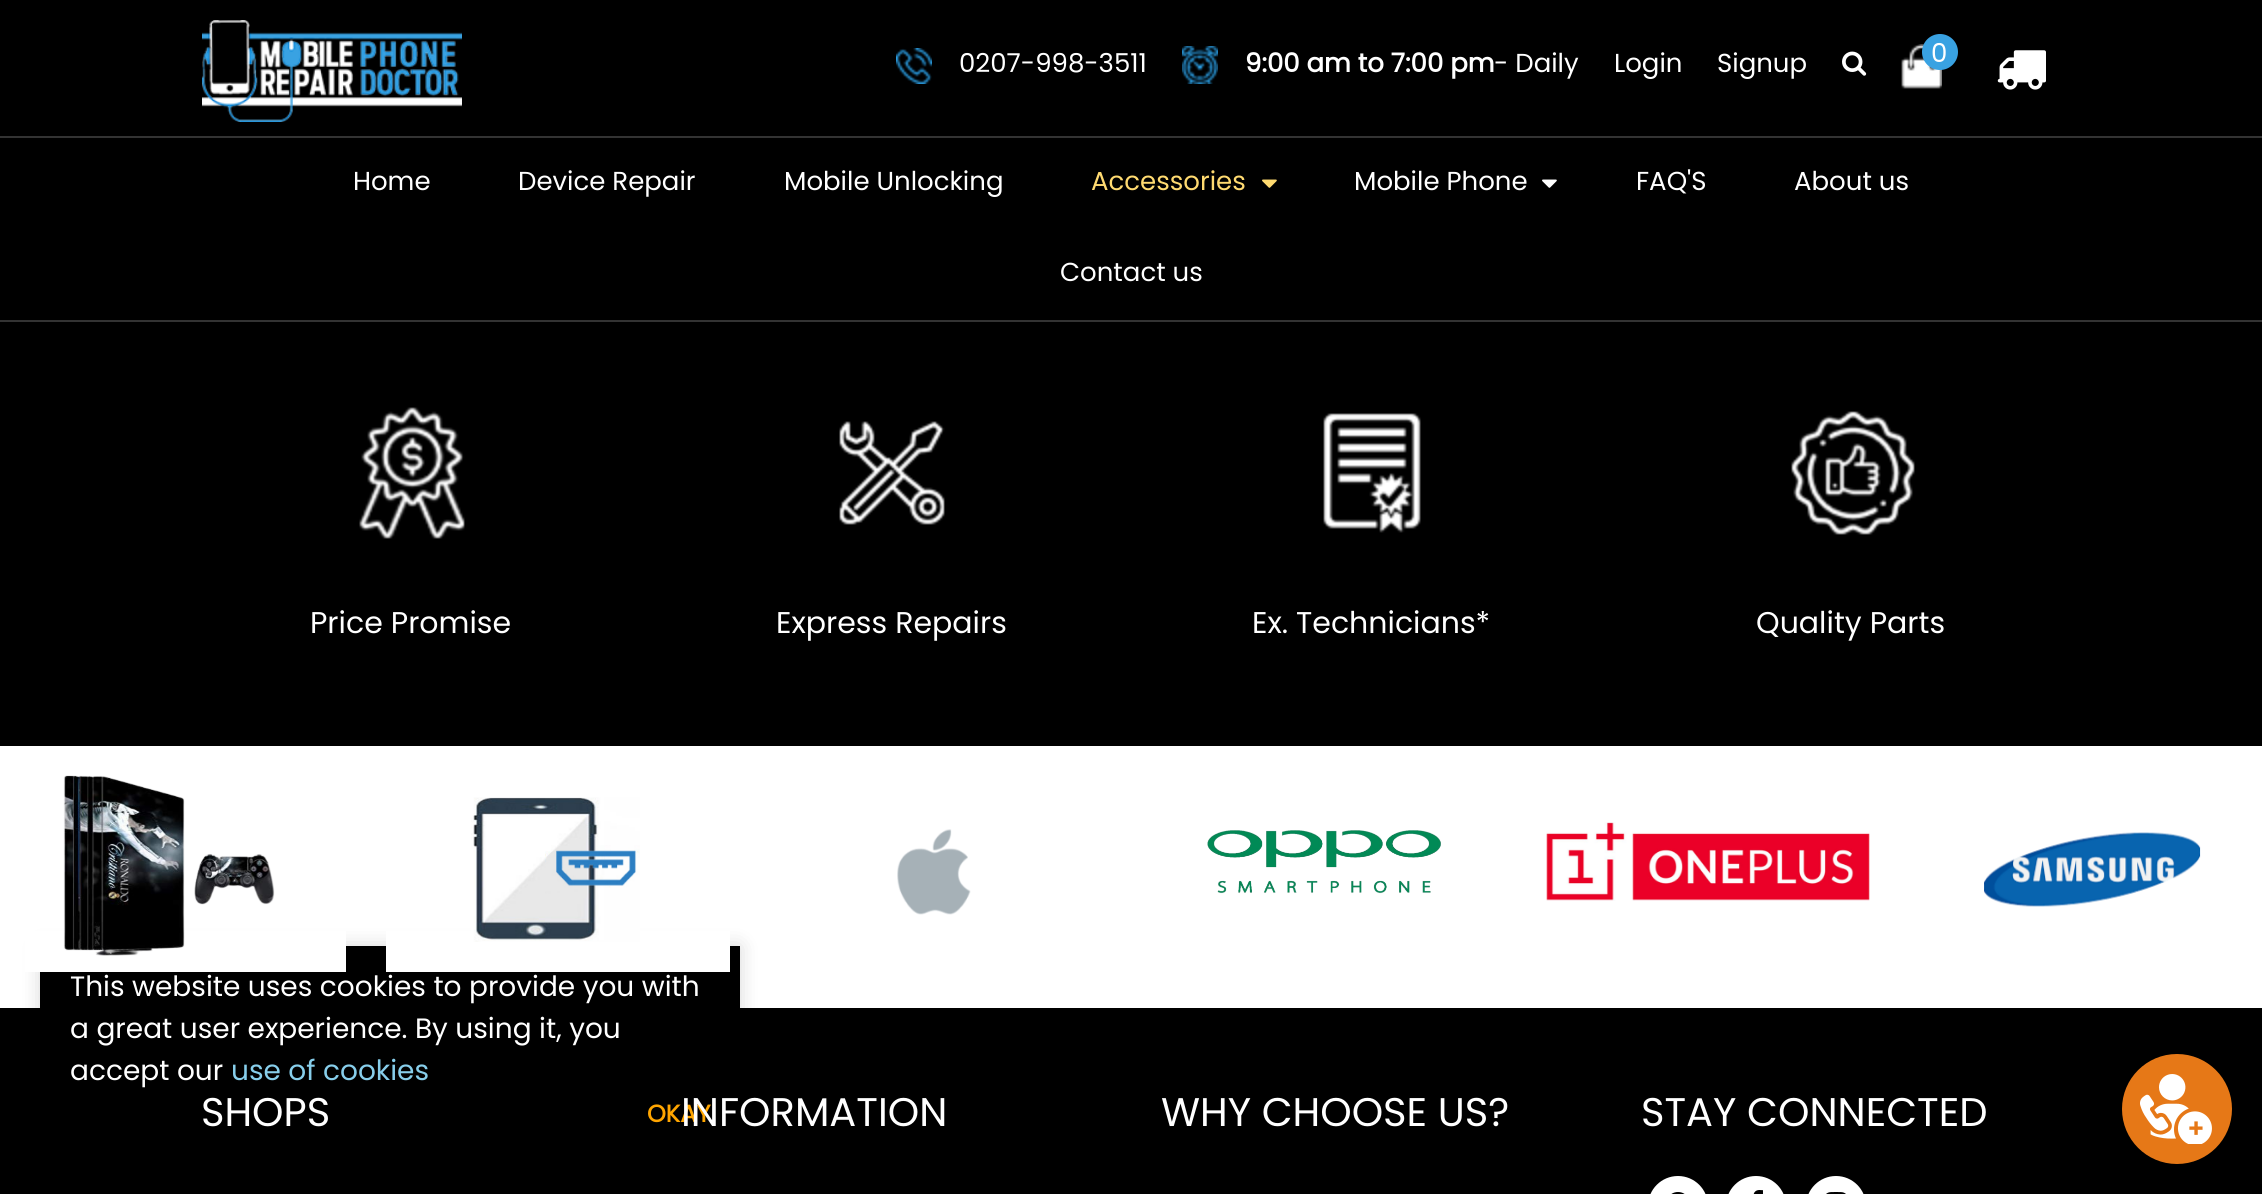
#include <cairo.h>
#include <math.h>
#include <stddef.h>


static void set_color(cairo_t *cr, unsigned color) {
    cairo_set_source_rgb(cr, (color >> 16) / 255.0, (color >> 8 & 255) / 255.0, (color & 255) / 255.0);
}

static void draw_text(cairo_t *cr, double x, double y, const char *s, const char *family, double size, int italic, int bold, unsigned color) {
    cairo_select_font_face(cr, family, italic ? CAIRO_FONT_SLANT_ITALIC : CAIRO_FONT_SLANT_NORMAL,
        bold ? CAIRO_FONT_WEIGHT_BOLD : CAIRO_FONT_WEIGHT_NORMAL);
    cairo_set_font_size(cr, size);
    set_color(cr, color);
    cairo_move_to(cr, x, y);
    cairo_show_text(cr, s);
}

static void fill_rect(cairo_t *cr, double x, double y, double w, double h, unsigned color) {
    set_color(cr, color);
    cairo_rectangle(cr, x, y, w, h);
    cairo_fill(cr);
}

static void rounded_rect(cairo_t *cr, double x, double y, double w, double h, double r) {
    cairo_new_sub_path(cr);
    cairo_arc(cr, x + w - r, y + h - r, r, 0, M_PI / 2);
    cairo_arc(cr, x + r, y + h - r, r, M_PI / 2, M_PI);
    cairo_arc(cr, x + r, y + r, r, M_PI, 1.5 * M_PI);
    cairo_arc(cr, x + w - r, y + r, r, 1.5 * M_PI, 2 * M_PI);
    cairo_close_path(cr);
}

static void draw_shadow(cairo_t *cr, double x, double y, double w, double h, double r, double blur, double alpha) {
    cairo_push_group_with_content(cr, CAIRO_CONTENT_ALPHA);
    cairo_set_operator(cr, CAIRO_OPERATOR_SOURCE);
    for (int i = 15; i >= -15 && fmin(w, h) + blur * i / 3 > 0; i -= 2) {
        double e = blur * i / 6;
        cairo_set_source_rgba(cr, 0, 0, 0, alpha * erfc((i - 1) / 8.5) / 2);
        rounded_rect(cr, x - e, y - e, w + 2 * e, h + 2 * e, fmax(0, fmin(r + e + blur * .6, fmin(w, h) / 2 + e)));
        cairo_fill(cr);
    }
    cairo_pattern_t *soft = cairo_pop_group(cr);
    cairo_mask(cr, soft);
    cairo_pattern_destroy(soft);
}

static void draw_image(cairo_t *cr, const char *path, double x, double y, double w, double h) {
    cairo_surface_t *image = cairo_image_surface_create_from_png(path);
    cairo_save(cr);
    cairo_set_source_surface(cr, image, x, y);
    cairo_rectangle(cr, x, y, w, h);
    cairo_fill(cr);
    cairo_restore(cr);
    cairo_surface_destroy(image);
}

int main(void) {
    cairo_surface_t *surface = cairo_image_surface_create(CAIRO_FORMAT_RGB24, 2262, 1194);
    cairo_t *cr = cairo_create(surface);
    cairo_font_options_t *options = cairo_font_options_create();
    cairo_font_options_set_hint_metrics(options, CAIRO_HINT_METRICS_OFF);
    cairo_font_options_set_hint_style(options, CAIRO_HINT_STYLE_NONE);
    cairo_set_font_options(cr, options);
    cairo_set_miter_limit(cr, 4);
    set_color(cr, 0xFFFFFF);
    cairo_paint(cr);
    fill_rect(cr, 0, 0, 2262, 320, 0x000000);
    draw_image(cr, "assets/img1.png", 202, 20, 260, 102);
    draw_image(cr, "assets/img2.png", 896, 48, 36, 36);
    draw_text(cr, 959, 72, "0207-998-3511", "Poppins", 26, 0, 0, 0xFFFFFF);
    draw_image(cr, "assets/img3.png", 1182, 46, 36, 38);
    draw_text(cr, 1245, 72, "9:00 am to 7:00 pm", "Poppins", 26, 0, 1, 0xFFFFFF);
    draw_text(cr, 1494, 72, "- Daily", "Poppins", 26, 0, 0, 0xFFFFFF);
    draw_text(cr, 1614, 72, "Login", "Poppins", 26, 0, 0, 0xFFFFFF);
    draw_text(cr, 1717, 72, "Signup", "Poppins", 26, 0, 0, 0xFFFFFF);
    draw_image(cr, "assets/img4.png", 1842, 51, 25, 25);
    draw_image(cr, "assets/img5.png", 1901, 44, 41, 45);
    set_color(cr, 0x39A2E2);
    cairo_arc(cr, 1940, 52, 18, 0, 2 * M_PI);
    cairo_fill(cr);
    draw_text(cr, 1931, 62, "0", "Poppins", 26, 0, 0, 0xFFFFFF);
    draw_image(cr, "assets/img6.png", 1997, 50, 49, 40);
    fill_rect(cr, 0, 136, 2262, 2, 0x333333);
    fill_rect(cr, 0, 320, 2262, 2, 0x333333);
    draw_text(cr, 353, 190, "Home", "Poppins", 26, 0, 0, 0xFFFFFF);
    draw_text(cr, 518, 190, "Device Repair", "Poppins", 26, 0, 0, 0xFFFFFF);
    draw_text(cr, 784, 190, "Mobile Unlocking", "Poppins", 26, 0, 0, 0xFFFFFF);
    draw_text(cr, 1091, 190, "Accessories", "Poppins", 26, 0, 0, 0xFFDA70);
    draw_image(cr, "assets/img7.png", 1262, 179, 15, 9);
    draw_text(cr, 1354, 190, "Mobile Phone", "Poppins", 26, 0, 0, 0xFFFFFF);
    draw_image(cr, "assets/img8.png", 1542, 179, 15, 9);
    draw_text(cr, 1636, 190, "FAQ'S", "Poppins", 26, 0, 0, 0xFFFFFF);
    draw_text(cr, 1794, 190, "About us", "Poppins", 26, 0, 0, 0xFFFFFF);
    draw_text(cr, 1060, 281, "Contact us", "Poppins", 26, 0, 0, 0xFFFFFF);
    fill_rect(cr, 0, 322, 2262, 424, 0x000000);
    draw_image(cr, "assets/img9.png", 359, 407, 106, 132);
    draw_text(cr, 310, 633, "Price Promise", "Poppins", 30, 0, 0, 0xFFFFFF);
    draw_image(cr, "assets/img10.png", 839, 421, 106, 104);
    draw_text(cr, 776, 633, "Express Repairs", "Poppins", 30, 0, 0, 0xFFFFFF);
    draw_image(cr, "assets/img11.png", 1323, 413, 98, 120);
    draw_text(cr, 1252, 633, "Ex. Technicians*", "Poppins", 30, 0, 0, 0xFFFFFF);
    draw_image(cr, "assets/img12.png", 1791, 411, 124, 124);
    draw_text(cr, 1756, 633, "Quality Parts", "Poppins", 30, 0, 0, 0xFFFFFF);
    fill_rect(cr, 0, 1008, 2262, 186, 0x000000);
    set_color(cr, 0x000000);
    draw_shadow(cr, 40, 946, 700, 208, 0, 10, 0.15);
    fill_rect(cr, 40, 946, 700, 62, 0x000000);
    fill_rect(cr, 25, 931, 321, 41, 0xFFFFFF);
    draw_image(cr, "assets/img13.png", 63, 775, 212, 181);
    fill_rect(cr, 386, 931, 344, 41, 0xFFFFFF);
    draw_image(cr, "assets/img14.png", 471, 797, 169, 145);
    draw_image(cr, "assets/img15.png", 897, 829, 74, 86);
    draw_image(cr, "assets/img16.png", 1207, 830, 234, 64);
    draw_image(cr, "assets/img17.png", 1546, 822, 324, 79);
    draw_image(cr, "assets/img18.png", 1984, 832, 217, 75);
    draw_text(cr, 70, 996, "This website uses cookies to provide you with", "Poppins", 28, 0, 0, 0xFFFFFF);
    draw_text(cr, 70, 1038, "a great user experience. By using it, you", "Poppins", 28, 0, 0, 0xFFFFFF);
    draw_text(cr, 70, 1080, "accept our", "Poppins", 28, 0, 0, 0xFFFFFF);
    draw_text(cr, 231, 1080, "use of cookies", "Poppins", 28, 0, 0, 0x87CEEB);
    draw_text(cr, 647, 1122, "OKAY", "Poppins", 24, 0, 1, 0xFFA500);
    set_color(cr, 0xE67817);
    cairo_new_path(cr);
    cairo_arc(cr, 2177, 1109, 55, 0, 2 * M_PI);
    cairo_fill(cr);
    draw_image(cr, "assets/img19.png", 2140, 1074, 72, 70);
    draw_text(cr, 201, 1126, "SHOPS", "Poppins", 40, 0, 0, 0xFFFFFF);
    draw_text(cr, 681, 1126, "INFORMATION", "Poppins", 40, 0, 0, 0xFFFFFF);
    draw_text(cr, 1161, 1126, "WHY CHOOSE US?", "Poppins", 40, 0, 0, 0xFFFFFF);
    draw_text(cr, 1641, 1126, "STAY CONNECTED", "Poppins", 40, 0, 0, 0xFFFFFF);
    rounded_rect(cr, 1648, 1176, 60, 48, 30);
    cairo_fill(cr);
    draw_image(cr, "assets/img20.png", 1671, 1192, 14, 2);
    rounded_rect(cr, 1726, 1176, 60, 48, 30);
    cairo_fill(cr);
    draw_image(cr, "assets/img21.png", 1753, 1190, 10, 4);
    rounded_rect(cr, 1806, 1176, 60, 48, 30);
    cairo_fill(cr);
    draw_image(cr, "assets/img22.png", 1826, 1192, 20, 2);
    cairo_surface_write_to_png(surface, "output.png");
    cairo_font_options_destroy(options);
    cairo_destroy(cr);
    cairo_surface_destroy(surface);
    return 0;
}
